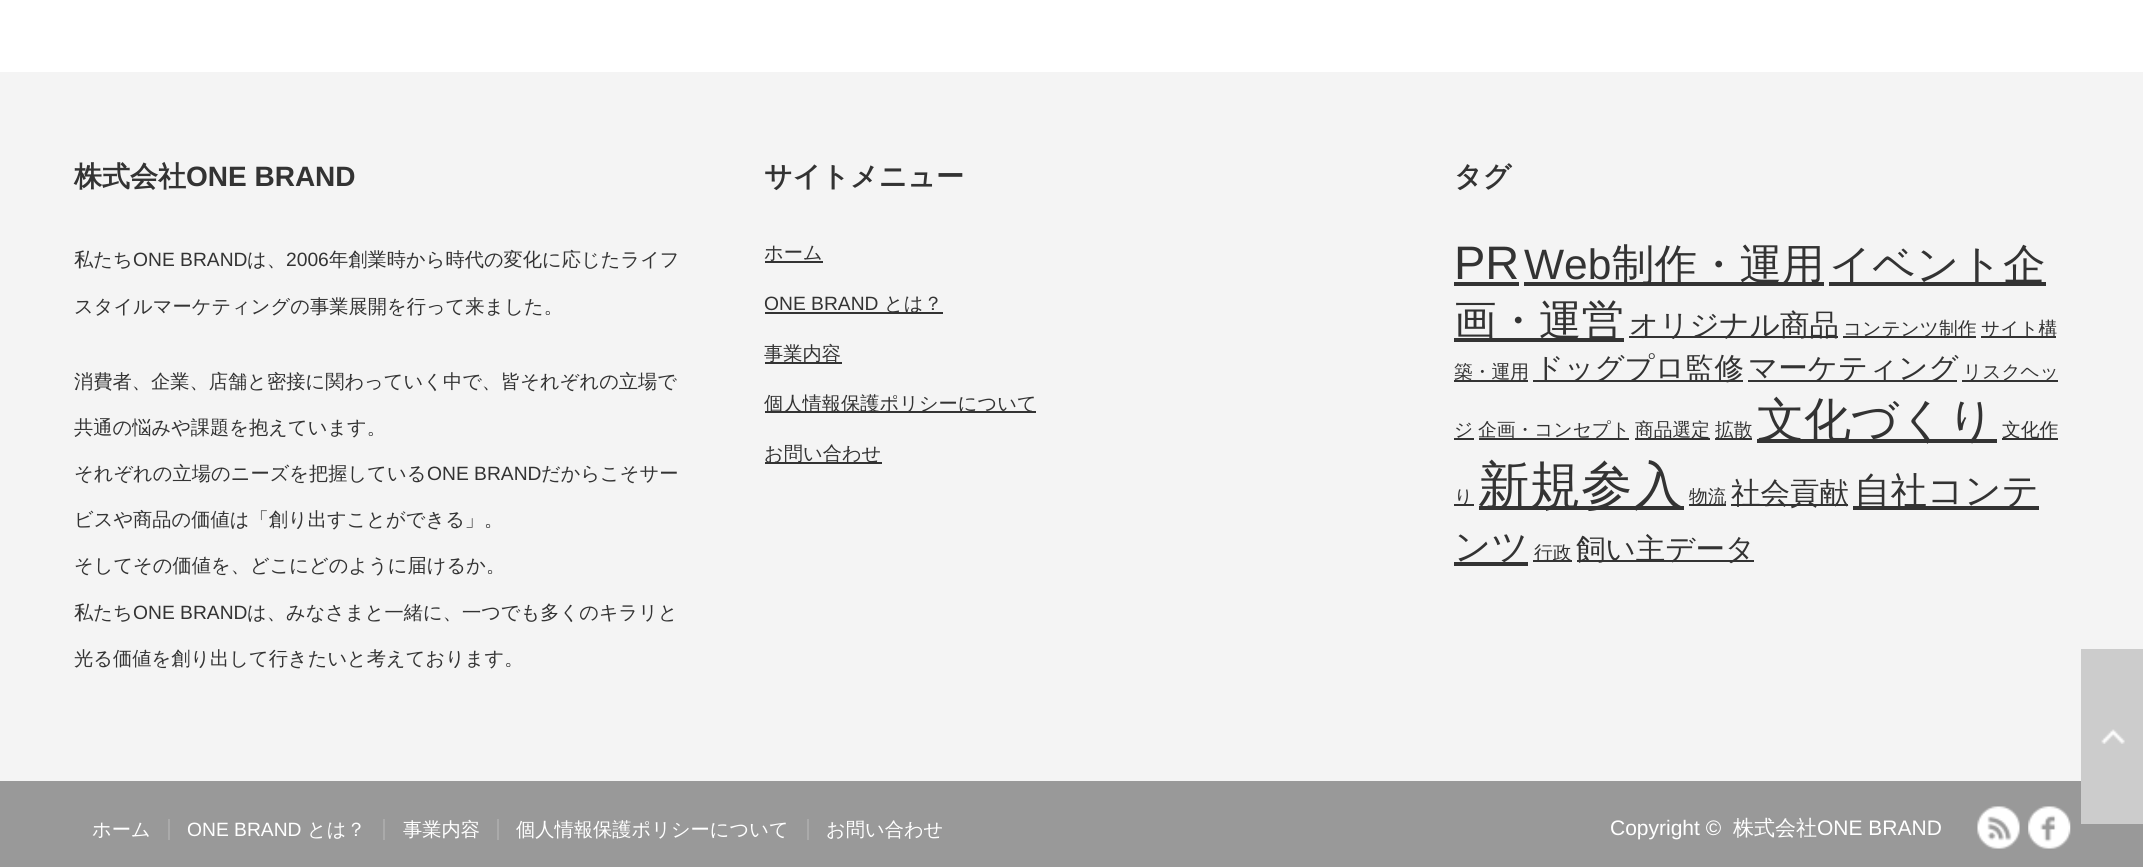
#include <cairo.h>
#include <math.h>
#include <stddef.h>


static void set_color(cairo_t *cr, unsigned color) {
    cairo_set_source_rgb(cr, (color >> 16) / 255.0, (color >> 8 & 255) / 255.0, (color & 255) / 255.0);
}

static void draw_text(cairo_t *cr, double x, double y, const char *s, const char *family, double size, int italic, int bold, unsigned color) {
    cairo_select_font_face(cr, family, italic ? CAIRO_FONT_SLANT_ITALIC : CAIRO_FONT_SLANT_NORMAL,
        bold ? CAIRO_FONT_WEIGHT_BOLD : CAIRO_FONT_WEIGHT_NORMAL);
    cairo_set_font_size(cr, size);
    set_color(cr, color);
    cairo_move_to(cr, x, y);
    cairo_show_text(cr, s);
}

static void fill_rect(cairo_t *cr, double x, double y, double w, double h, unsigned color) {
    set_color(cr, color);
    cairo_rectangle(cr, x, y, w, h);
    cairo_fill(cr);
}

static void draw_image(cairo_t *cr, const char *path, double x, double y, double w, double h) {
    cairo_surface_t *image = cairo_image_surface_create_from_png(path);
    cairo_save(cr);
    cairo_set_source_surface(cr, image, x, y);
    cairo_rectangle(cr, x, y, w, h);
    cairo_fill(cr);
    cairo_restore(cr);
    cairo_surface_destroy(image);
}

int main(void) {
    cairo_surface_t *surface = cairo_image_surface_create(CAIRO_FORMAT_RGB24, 2143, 867);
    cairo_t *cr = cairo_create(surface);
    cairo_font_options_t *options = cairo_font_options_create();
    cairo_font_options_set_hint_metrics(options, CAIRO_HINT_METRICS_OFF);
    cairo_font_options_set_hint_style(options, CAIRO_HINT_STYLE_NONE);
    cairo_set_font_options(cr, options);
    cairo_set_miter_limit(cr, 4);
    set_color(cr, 0xFFFFFF);
    cairo_paint(cr);
    fill_rect(cr, 0, 72, 2143, 709, 0xF4F4F4);
    draw_text(cr, 74, 186, "株式会社", "WenQuanYi Zen Hei", 28, 0, 1, 0x333333);
    draw_text(cr, 186, 186, "ONE BRAND", "Liberation Sans", 28, 0, 1, 0x333333);
    draw_text(cr, 74, 266, "私たち", "WenQuanYi Zen Hei Medium", 19.25, 0, 0, 0x333333);
    draw_text(cr, 133, 266, "ONE BRAND", "Liberation Sans", 19.25, 0, 0, 0x333333);
    draw_text(cr, 247, 266, "は、", "WenQuanYi Zen Hei Medium", 19.25, 0, 0, 0x333333);
    draw_text(cr, 286, 266, "2006", "Liberation Sans", 19.25, 0, 0, 0x333333);
    draw_text(cr, 329, 266, "年創業時から時代の変化に応じたライフ", "WenQuanYi Zen Hei Medium", 19.25, 0, 0, 0x333333);
    draw_text(cr, 74, 313, "スタイルマーケティングの事業展開を行って来ました。", "WenQuanYi Zen Hei Medium", 19.25, 0, 0, 0x333333);
    draw_text(cr, 74, 388, "消費者、企業、店舗と密接に関わっていく中で、皆それぞれの立場で", "WenQuanYi Zen Hei Medium", 19.25, 0, 0, 0x333333);
    draw_text(cr, 74, 434, "共通の悩みや課題を抱えています。", "WenQuanYi Zen Hei Medium", 19.25, 0, 0, 0x333333);
    draw_text(cr, 74, 480, "それぞれの立場のニーズを把握している", "WenQuanYi Zen Hei Medium", 19.25, 0, 0, 0x333333);
    draw_text(cr, 427, 480, "ONE BRAND", "Liberation Sans", 19.25, 0, 0, 0x333333);
    draw_text(cr, 541, 480, "だからこそサー", "WenQuanYi Zen Hei Medium", 19.25, 0, 0, 0x333333);
    draw_text(cr, 74, 526, "ビスや商品の価値は「創り出すことができる」。", "WenQuanYi Zen Hei Medium", 19.25, 0, 0, 0x333333);
    draw_text(cr, 74, 572, "そしてその価値を、どこにどのように届けるか。", "WenQuanYi Zen Hei Medium", 19.25, 0, 0, 0x333333);
    draw_text(cr, 74, 619, "私たち", "WenQuanYi Zen Hei Medium", 19.25, 0, 0, 0x333333);
    draw_text(cr, 133, 619, "ONE BRAND", "Liberation Sans", 19.25, 0, 0, 0x333333);
    draw_text(cr, 247, 619, "は、みなさまと一緒に、一つでも多くのキラリと", "WenQuanYi Zen Hei Medium", 19.25, 0, 0, 0x333333);
    draw_text(cr, 74, 665, "光る価値を創り出して行きたいと考えております。", "WenQuanYi Zen Hei Medium", 19.25, 0, 0, 0x333333);
    draw_text(cr, 764, 186, "サイトメニュー", "WenQuanYi Zen Hei", 28, 0, 1, 0x333333);
    draw_text(cr, 764, 259, "ホーム", "WenQuanYi Zen Hei Medium", 19.25, 0, 0, 0x333333);
    fill_rect(cr, 765, 261, 58, 2, 0x333333);
    draw_text(cr, 764, 310, "ONE BRAND", "Liberation Sans", 19.25, 0, 0, 0x333333);
    fill_rect(cr, 765, 312, 178, 2, 0x333333);
    draw_text(cr, 884, 310, "とは？", "WenQuanYi Zen Hei Medium", 19.25, 0, 0, 0x333333);
    fill_rect(cr, 765, 362, 77, 2, 0x333333);
    draw_text(cr, 764, 360, "事業内容", "WenQuanYi Zen Hei Medium", 19.25, 0, 0, 0x333333);
    fill_rect(cr, 765, 411, 271, 2, 0x333333);
    draw_text(cr, 764, 410, "個人情報保護ポリシーについて", "WenQuanYi Zen Hei Medium", 19.25, 0, 0, 0x333333);
    fill_rect(cr, 765, 462, 117, 2, 0x333333);
    draw_text(cr, 764, 460, "お問い合わせ", "WenQuanYi Zen Hei Medium", 19.25, 0, 0, 0x333333);
    draw_text(cr, 1454, 186, "タグ", "WenQuanYi Zen Hei", 28, 0, 1, 0x333333);
    draw_text(cr, 1454, 279, "PR", "Liberation Sans", 47, 0, 0, 0x333333);
    fill_rect(cr, 1454, 282, 65, 4, 0x333333);
    draw_text(cr, 1524, 279, "Web", "Liberation Sans", 42.5, 0, 0, 0x333333);
    fill_rect(cr, 1524, 282, 300, 4, 0x333333);
    draw_text(cr, 1612, 279, "制作・運用", "WenQuanYi Zen Hei Medium", 42.5, 0, 0, 0x333333);
    fill_rect(cr, 1829, 282, 217, 4, 0x333333);
    draw_text(cr, 1829, 279, "イベント企", "WenQuanYi Zen Hei Medium", 42.5, 0, 0, 0x333333);
    fill_rect(cr, 1454, 338, 170, 4, 0x333333);
    draw_text(cr, 1454, 335, "画・運営", "WenQuanYi Zen Hei Medium", 42.5, 0, 0, 0x333333);
    fill_rect(cr, 1629, 336, 209, 2, 0x333333);
    draw_text(cr, 1629, 335, "オリジナル商品", "WenQuanYi Zen Hei Medium", 29.5, 0, 0, 0x333333);
    fill_rect(cr, 1843, 336, 133, 2, 0x333333);
    draw_text(cr, 1843, 335, "コンテンツ制作", "WenQuanYi Zen Hei Medium", 18.75, 0, 0, 0x333333);
    fill_rect(cr, 1981, 336, 75, 2, 0x333333);
    draw_text(cr, 1981, 335, "サイト構", "WenQuanYi Zen Hei Medium", 18.75, 0, 0, 0x333333);
    fill_rect(cr, 1454, 380, 74, 2, 0x333333);
    draw_text(cr, 1454, 378, "築・運用", "WenQuanYi Zen Hei Medium", 18.75, 0, 0, 0x333333);
    fill_rect(cr, 1533, 380, 210, 2, 0x333333);
    draw_text(cr, 1534, 378, "ドッグプロ監修", "WenQuanYi Zen Hei Medium", 29.5, 0, 0, 0x333333);
    fill_rect(cr, 1748, 380, 209, 2, 0x333333);
    draw_text(cr, 1748, 378, "マーケティング", "WenQuanYi Zen Hei Medium", 29.5, 0, 0, 0x333333);
    fill_rect(cr, 1962, 380, 96, 2, 0x333333);
    draw_text(cr, 1963, 378, "リスクヘッ", "WenQuanYi Zen Hei Medium", 18.75, 0, 0, 0x333333);
    draw_text(cr, 1454, 436, "ジ", "WenQuanYi Zen Hei Medium", 18.75, 0, 0, 0x333333);
    fill_rect(cr, 1454, 438, 20, 2, 0x333333);
    fill_rect(cr, 1479, 438, 150, 2, 0x333333);
    draw_text(cr, 1478, 436, "企画・コンセプト", "WenQuanYi Zen Hei Medium", 18.75, 0, 0, 0x333333);
    fill_rect(cr, 1635, 438, 75, 2, 0x333333);
    draw_text(cr, 1635, 436, "商品選定", "WenQuanYi Zen Hei Medium", 18.75, 0, 0, 0x333333);
    fill_rect(cr, 1715, 438, 37, 2, 0x333333);
    draw_text(cr, 1715, 436, "拡散", "WenQuanYi Zen Hei Medium", 18.75, 0, 0, 0x333333);
    fill_rect(cr, 1757, 439, 240, 4, 0x333333);
    draw_text(cr, 1757, 436, "文化づくり", "WenQuanYi Zen Hei Medium", 47, 0, 0, 0x333333);
    fill_rect(cr, 2002, 438, 56, 2, 0x333333);
    draw_text(cr, 2002, 436, "文化作", "WenQuanYi Zen Hei Medium", 18.75, 0, 0, 0x333333);
    fill_rect(cr, 1454, 504, 20, 2, 0x333333);
    draw_text(cr, 1454, 503, "り", "WenQuanYi Zen Hei Medium", 18.75, 0, 0, 0x333333);
    fill_rect(cr, 1479, 506, 205, 4, 0x333333);
    draw_text(cr, 1478, 503, "新規参入", "WenQuanYi Zen Hei Medium", 51.5, 0, 0, 0x333333);
    fill_rect(cr, 1689, 504, 37, 2, 0x333333);
    draw_text(cr, 1689, 503, "物流", "WenQuanYi Zen Hei Medium", 18.75, 0, 0, 0x333333);
    fill_rect(cr, 1731, 504, 117, 2, 0x333333);
    draw_text(cr, 1731, 503, "社会貢献", "WenQuanYi Zen Hei Medium", 29.5, 0, 0, 0x333333);
    fill_rect(cr, 1853, 506, 186, 4, 0x333333);
    draw_text(cr, 1854, 503, "自社コンテ", "WenQuanYi Zen Hei Medium", 36.5, 0, 0, 0x333333);
    fill_rect(cr, 1454, 562, 74, 4, 0x333333);
    draw_text(cr, 1454, 559, "ンツ", "WenQuanYi Zen Hei Medium", 36.5, 0, 0, 0x333333);
    fill_rect(cr, 1533, 560, 39, 2, 0x333333);
    draw_text(cr, 1534, 559, "行政", "WenQuanYi Zen Hei Medium", 18.75, 0, 0, 0x333333);
    fill_rect(cr, 1577, 560, 177, 2, 0x333333);
    draw_text(cr, 1576, 559, "飼い主データ", "WenQuanYi Zen Hei Medium", 29.5, 0, 0, 0x333333);
    fill_rect(cr, 0, 781, 2143, 86, 0x999999);
    fill_rect(cr, 2081, 649, 62, 175, 0xCCCCCC);
    draw_image(cr, "assets/img1.png", 2101, 729, 24, 15);
    draw_text(cr, 92, 836, "ホーム", "WenQuanYi Zen Hei Medium", 19.25, 0, 0, 0xFFFFFF);
    fill_rect(cr, 168, 819, 2, 21, 0xAAAAAA);
    draw_text(cr, 187, 836, "ONE BRAND", "Liberation Sans", 19.25, 0, 0, 0xFFFFFF);
    draw_text(cr, 307, 836, "とは？", "WenQuanYi Zen Hei Medium", 19.25, 0, 0, 0xFFFFFF);
    fill_rect(cr, 383, 819, 2, 21, 0xAAAAAA);
    draw_text(cr, 403, 836, "事業内容", "WenQuanYi Zen Hei Medium", 19.25, 0, 0, 0xFFFFFF);
    fill_rect(cr, 497, 819, 2, 21, 0xAAAAAA);
    draw_text(cr, 516, 836, "個人情報保護ポリシーについて", "WenQuanYi Zen Hei Medium", 19.25, 0, 0, 0xFFFFFF);
    fill_rect(cr, 807, 819, 2, 21, 0xAAAAAA);
    draw_text(cr, 826, 836, "お問い合わせ", "WenQuanYi Zen Hei Medium", 19.25, 0, 0, 0xFFFFFF);
    draw_text(cr, 1610, 835, "Copyright ©", "Liberation Sans", 21, 0, 0, 0xFFFFFF);
    draw_text(cr, 1733, 835, "株式会社", "WenQuanYi Zen Hei Medium", 21, 0, 0, 0xFFFFFF);
    draw_text(cr, 1817, 835, "ONE BRAND", "Liberation Sans", 21, 0, 0, 0xFFFFFF);
    draw_image(cr, "assets/img2.png", 1977, 806, 43, 43);
    draw_image(cr, "assets/img3.png", 2028, 806, 43, 43);
    cairo_surface_write_to_png(surface, "output.png");
    cairo_font_options_destroy(options);
    cairo_destroy(cr);
    cairo_surface_destroy(surface);
    return 0;
}
